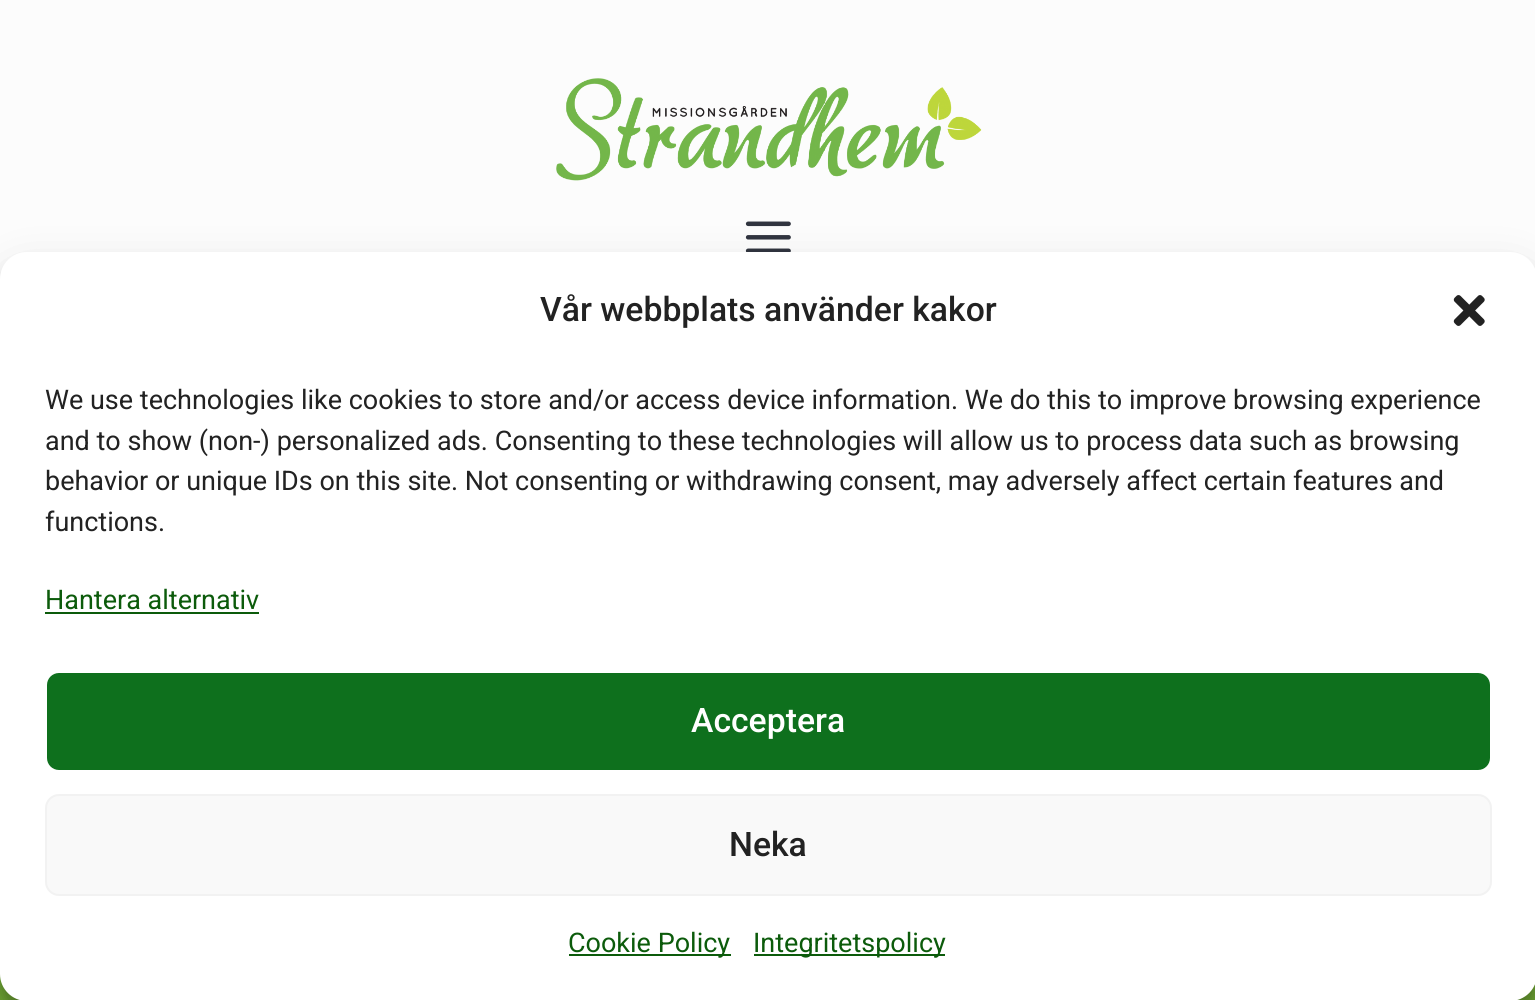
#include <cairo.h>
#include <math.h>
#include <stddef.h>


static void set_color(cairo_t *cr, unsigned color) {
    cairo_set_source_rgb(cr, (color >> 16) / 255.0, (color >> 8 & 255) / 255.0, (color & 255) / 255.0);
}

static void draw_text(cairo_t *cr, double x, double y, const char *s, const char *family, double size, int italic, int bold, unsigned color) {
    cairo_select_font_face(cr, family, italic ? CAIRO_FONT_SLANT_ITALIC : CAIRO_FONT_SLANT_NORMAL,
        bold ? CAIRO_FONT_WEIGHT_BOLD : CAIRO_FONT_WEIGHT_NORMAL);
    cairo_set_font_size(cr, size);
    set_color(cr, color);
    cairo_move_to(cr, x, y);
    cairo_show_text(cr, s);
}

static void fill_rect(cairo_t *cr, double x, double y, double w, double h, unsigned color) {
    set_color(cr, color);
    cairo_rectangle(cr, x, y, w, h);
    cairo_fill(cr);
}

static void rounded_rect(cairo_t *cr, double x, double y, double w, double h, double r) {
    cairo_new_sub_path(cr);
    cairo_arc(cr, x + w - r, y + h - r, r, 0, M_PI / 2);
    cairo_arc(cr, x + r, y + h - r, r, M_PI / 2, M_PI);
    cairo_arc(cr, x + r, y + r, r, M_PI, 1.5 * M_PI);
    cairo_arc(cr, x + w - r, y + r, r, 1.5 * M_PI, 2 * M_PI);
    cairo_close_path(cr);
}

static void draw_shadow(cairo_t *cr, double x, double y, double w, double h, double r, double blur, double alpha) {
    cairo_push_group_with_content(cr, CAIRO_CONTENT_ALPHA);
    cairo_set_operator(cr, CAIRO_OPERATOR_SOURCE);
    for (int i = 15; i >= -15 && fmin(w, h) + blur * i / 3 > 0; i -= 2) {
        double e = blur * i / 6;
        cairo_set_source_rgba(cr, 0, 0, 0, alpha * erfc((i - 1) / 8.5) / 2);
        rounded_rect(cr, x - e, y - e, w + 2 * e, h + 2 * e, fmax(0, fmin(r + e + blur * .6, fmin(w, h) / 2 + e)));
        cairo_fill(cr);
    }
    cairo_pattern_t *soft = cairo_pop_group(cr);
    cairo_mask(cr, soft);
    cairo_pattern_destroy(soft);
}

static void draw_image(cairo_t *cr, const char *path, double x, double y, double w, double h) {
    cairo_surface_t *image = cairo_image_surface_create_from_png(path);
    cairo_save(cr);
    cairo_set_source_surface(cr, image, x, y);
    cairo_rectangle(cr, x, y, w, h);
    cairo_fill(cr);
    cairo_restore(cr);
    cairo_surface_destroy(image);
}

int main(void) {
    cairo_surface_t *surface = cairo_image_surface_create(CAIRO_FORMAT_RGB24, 1535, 1000);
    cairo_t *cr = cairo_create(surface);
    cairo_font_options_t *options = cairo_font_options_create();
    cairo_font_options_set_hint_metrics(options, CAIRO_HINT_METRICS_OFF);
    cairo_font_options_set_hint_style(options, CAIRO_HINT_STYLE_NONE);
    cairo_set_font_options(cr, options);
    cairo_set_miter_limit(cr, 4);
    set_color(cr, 0x77B238);
    cairo_paint(cr);
    fill_rect(cr, 0, 0, 1535, 279, 0xFCFCFC);
    draw_image(cr, "assets/img1.png", 556, 78, 426, 103);
    draw_image(cr, "assets/img2.png", 745, 221, 46, 31);
    set_color(cr, 0x000000);
    draw_shadow(cr, 0, 266, 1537, 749, 27, 7, 0.23);
    draw_shadow(cr, 0, 275, 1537, 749, 27, 22.5, 0.19);
    set_color(cr, 0xFFFFFF);
    rounded_rect(cr, 0, 252, 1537, 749, 27);
    cairo_fill(cr);
    draw_text(cr, 540, 321, "Vår webbplats använder kakor", "Roboto Medium", 33.75, 0, 0, 0x222222);
    draw_image(cr, "assets/img3.png", 1453, 295, 32, 31);
    draw_text(cr, 45, 409, "We use technologies like cookies to store and/or access device information. We do this to improve browsing experience", "Roboto", 27, 0, 0, 0x222222);
    draw_text(cr, 45, 450, "and to show (non-) personalized ads. Consenting to these technologies will allow us to process data such as browsing", "Roboto", 27, 0, 0, 0x222222);
    draw_text(cr, 45, 490, "behavior or unique IDs on this site. Not consenting or withdrawing consent, may adversely affect certain features and", "Roboto", 27, 0, 0, 0x222222);
    draw_text(cr, 45, 531, "functions.", "Roboto", 27, 0, 0, 0x222222);
    draw_text(cr, 45, 609, "Hantera alternativ", "Roboto", 27, 0, 0, 0x0C5B0B);
    fill_rect(cr, 45, 612, 214, 2, 0x0C5B0B);
    set_color(cr, 0x0E701D);
    rounded_rect(cr, 46, 672, 1445, 99, 13);
    cairo_fill_preserve(cr);
    set_color(cr, 0xFFFFFF);
    cairo_stroke(cr);
    draw_text(cr, 691, 732, "Acceptera", "Roboto Medium", 33.75, 0, 0, 0xFFFFFF);
    set_color(cr, 0xF9F9F9);
    rounded_rect(cr, 46, 795, 1445, 100, 13);
    cairo_fill_preserve(cr);
    set_color(cr, 0xF2F2F2);
    cairo_stroke(cr);
    draw_text(cr, 729, 856, "Neka", "Roboto Medium", 33.75, 0, 0, 0x222222);
    fill_rect(cr, 569, 954, 162, 2, 0x0C5B0B);
    draw_text(cr, 568, 952, "Cookie Policy", "Roboto", 27, 0, 0, 0x0C5B0B);
    fill_rect(cr, 754, 954, 191, 2, 0x0C5B0B);
    draw_text(cr, 753, 952, "Integritetspolicy", "Roboto", 27, 0, 0, 0x0C5B0B);
    cairo_surface_write_to_png(surface, "output.png");
    cairo_font_options_destroy(options);
    cairo_destroy(cr);
    cairo_surface_destroy(surface);
    return 0;
}
